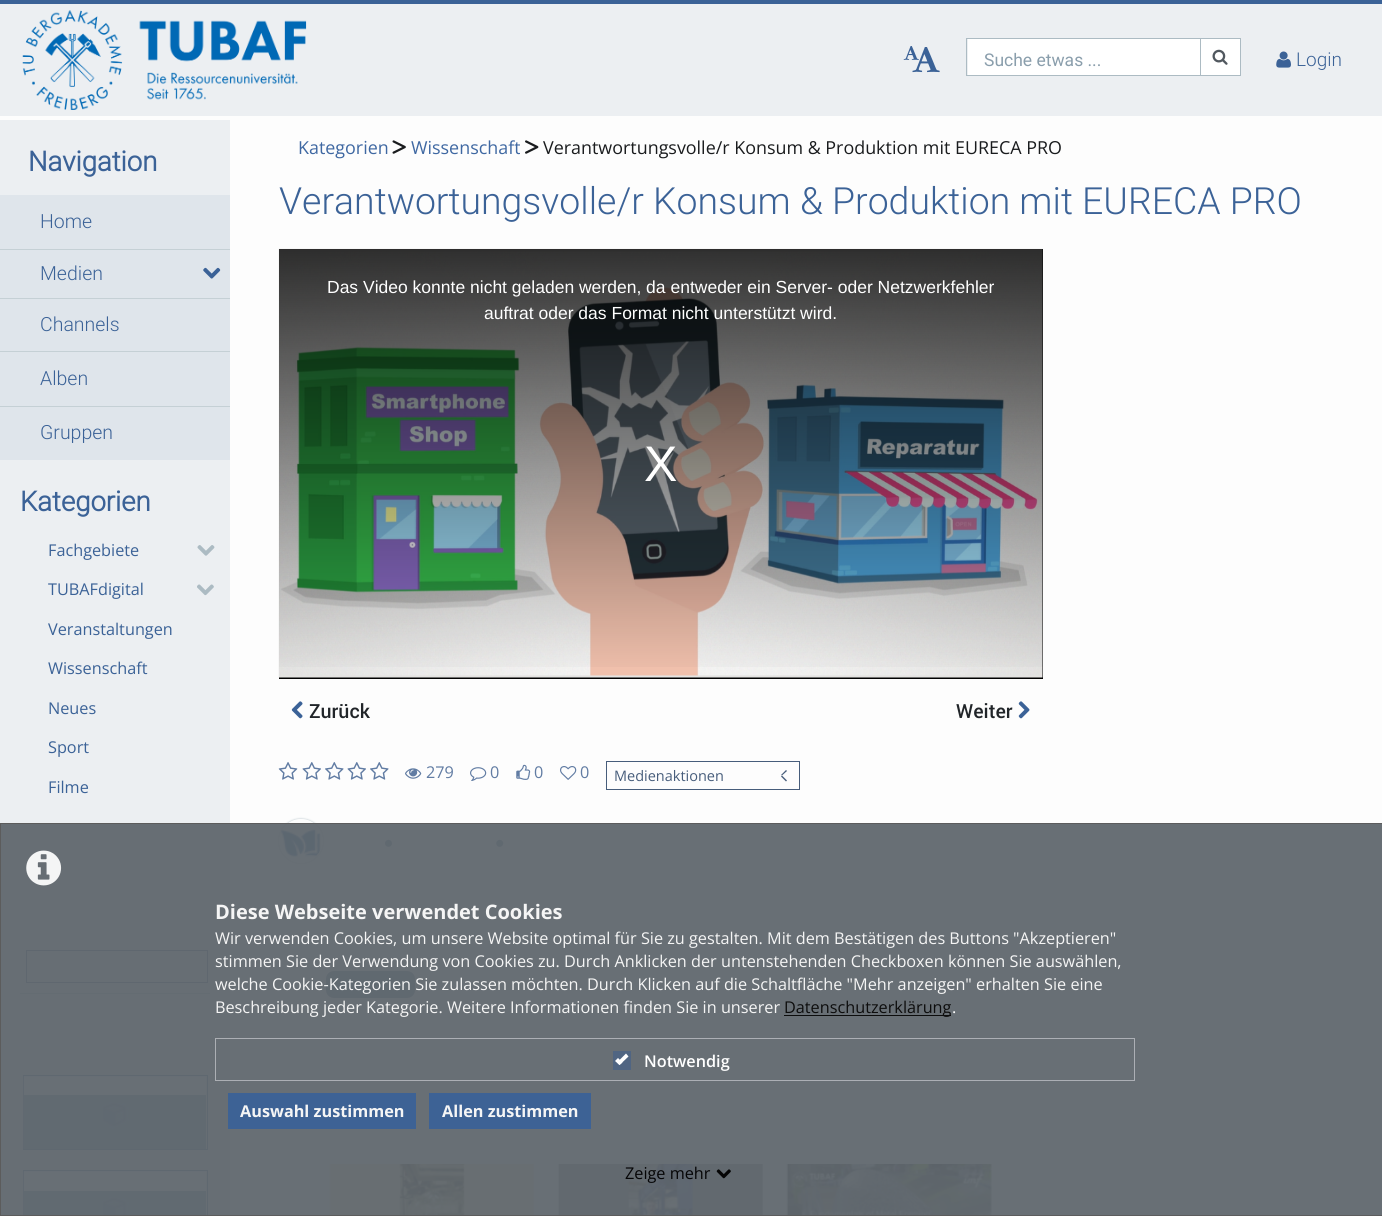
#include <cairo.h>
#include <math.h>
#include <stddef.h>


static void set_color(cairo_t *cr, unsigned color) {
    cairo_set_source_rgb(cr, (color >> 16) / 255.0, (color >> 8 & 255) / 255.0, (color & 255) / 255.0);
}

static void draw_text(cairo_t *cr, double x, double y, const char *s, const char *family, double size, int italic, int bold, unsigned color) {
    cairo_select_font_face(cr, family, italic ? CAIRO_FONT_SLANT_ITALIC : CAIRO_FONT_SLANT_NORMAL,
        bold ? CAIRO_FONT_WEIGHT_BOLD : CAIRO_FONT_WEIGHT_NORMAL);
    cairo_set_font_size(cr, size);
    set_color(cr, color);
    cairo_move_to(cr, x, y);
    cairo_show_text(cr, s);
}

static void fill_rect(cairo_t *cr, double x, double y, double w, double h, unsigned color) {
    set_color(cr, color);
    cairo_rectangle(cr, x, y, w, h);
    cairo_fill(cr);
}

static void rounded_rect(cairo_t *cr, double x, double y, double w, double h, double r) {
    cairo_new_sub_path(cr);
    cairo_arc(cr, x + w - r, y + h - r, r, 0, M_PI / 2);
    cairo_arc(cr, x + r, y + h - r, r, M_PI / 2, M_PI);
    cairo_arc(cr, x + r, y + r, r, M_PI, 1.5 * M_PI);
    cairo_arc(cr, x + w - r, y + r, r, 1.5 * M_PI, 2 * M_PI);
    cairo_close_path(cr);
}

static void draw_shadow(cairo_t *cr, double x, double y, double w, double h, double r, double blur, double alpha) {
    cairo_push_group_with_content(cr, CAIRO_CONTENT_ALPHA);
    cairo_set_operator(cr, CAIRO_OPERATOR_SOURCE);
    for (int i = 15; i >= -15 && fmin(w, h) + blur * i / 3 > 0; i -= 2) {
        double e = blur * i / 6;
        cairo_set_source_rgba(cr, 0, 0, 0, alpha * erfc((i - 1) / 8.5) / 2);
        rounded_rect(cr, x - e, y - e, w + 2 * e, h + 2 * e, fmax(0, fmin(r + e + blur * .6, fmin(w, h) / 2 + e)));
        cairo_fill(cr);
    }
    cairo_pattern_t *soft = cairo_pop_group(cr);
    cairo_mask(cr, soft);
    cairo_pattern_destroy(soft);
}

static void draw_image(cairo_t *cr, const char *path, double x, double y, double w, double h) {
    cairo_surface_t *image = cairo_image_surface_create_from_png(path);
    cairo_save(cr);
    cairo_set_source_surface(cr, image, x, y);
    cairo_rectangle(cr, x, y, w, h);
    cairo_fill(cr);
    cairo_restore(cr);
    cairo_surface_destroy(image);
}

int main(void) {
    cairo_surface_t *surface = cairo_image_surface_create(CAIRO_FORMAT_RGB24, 1382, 1216);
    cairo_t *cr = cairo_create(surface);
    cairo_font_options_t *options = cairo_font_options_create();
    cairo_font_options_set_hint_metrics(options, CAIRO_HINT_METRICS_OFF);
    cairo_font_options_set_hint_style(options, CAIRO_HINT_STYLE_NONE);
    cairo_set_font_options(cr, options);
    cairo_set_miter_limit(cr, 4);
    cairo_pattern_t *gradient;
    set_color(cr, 0xECEFF2);
    cairo_paint(cr);
    fill_rect(cr, 0, 0, 1382, 4, 0x3B6297);
    draw_image(cr, "assets/img1.png", 22, 10, 285, 100);
    draw_image(cr, "assets/img2.png", 903, 46, 16, 14);
    draw_image(cr, "assets/img3.png", 912, 47, 28, 26);
    fill_rect(cr, 968, 39, 232, 36, 0xFFFFFF);
    cairo_rectangle(cr, 966.5, 38.5, 234, 37);
    set_color(cr, 0xACBBC3);
    cairo_set_line_width(cr, 1);
    cairo_stroke(cr);
    set_color(cr, 0xFFFFFF);
    cairo_rectangle(cr, 1200.5, 38.5, 40, 37);
    cairo_fill_preserve(cr);
    set_color(cr, 0xACBBC3);
    cairo_stroke(cr);
    draw_image(cr, "assets/img4.png", 1212, 49, 16, 16);
    draw_text(cr, 984, 66, "Suche etwas ...", "Roboto", 17.5, 0, 0, 0x8A9EAC);
    draw_image(cr, "assets/img5.png", 1276, 51, 15, 17);
    draw_text(cr, 1296, 66, "Login", "Roboto Light", 19, 0, 0, 0x3B6297);
    fill_rect(cr, 0, 116, 230, 4, 0xFDFDFD);
    draw_text(cr, 28, 171, "Navigation", "Roboto", 27.5, 0, 1, 0x3B6297);
    fill_rect(cr, 0, 195, 230, 54, 0xDFE5EB);
    draw_text(cr, 40, 228, "Home", "Roboto Light", 19.5, 0, 0, 0x3B6297);
    fill_rect(cr, 0, 250, 230, 48, 0xDFE5EB);
    fill_rect(cr, 0, 249, 230, 1, 0xC5D0D5);
    draw_text(cr, 40, 280, "Medien", "Roboto Light", 19.5, 0, 0, 0x3B6297);
    draw_image(cr, "assets/img6.png", 203, 267, 18, 12);
    fill_rect(cr, 0, 299, 230, 52, 0xDFE5EB);
    fill_rect(cr, 0, 298, 230, 1, 0xC5D0D5);
    draw_text(cr, 40, 331, "Channels", "Roboto Light", 19.5, 0, 0, 0x3B6297);
    fill_rect(cr, 0, 352, 230, 54, 0xDFE5EB);
    fill_rect(cr, 0, 351, 230, 1, 0xC5D0D5);
    draw_text(cr, 40, 385, "Alben", "Roboto Light", 19.5, 0, 0, 0x3B6297);
    fill_rect(cr, 0, 407, 230, 53, 0xDFE5EB);
    fill_rect(cr, 0, 406, 230, 1, 0xC5D0D5);
    draw_text(cr, 40, 439, "Gruppen", "Roboto Light", 19.5, 0, 0, 0x3B6297);
    fill_rect(cr, 20, 993, 190, 1, 0xACBBC3);
    draw_text(cr, 20, 511, "Kategorien", "Roboto", 27.5, 0, 1, 0x3B6297);
    draw_text(cr, 48, 556, "Fachgebiete", "Open Sans", 16.25, 0, 0, 0x3B6297);
    draw_image(cr, "assets/img7.png", 197, 545, 18, 11);
    draw_text(cr, 48, 595, "TUBAFdigital", "Open Sans", 16.25, 0, 0, 0x3B6297);
    draw_image(cr, "assets/img8.png", 197, 584, 17, 12);
    draw_text(cr, 48, 635, "Veranstaltungen", "Open Sans", 16.25, 0, 0, 0x3B6297);
    draw_text(cr, 48, 674, "Wissenschaft", "Open Sans", 16.25, 0, 0, 0x3B6297);
    draw_text(cr, 48, 714, "Neues", "Open Sans", 16.25, 0, 0, 0x3B6297);
    draw_text(cr, 48, 753, "Sport", "Open Sans", 16.25, 0, 0, 0x3B6297);
    draw_text(cr, 48, 793, "Filme", "Open Sans", 16.25, 0, 0, 0x3B6297);
    cairo_rectangle(cr, 26.5, 950.5, 181, 32);
    set_color(cr, 0x475D7B);
    cairo_stroke(cr);
    cairo_rectangle(cr, 23.5, 1075.5, 184, 74);
    set_color(cr, 0x3B6297);
    cairo_stroke(cr);
    draw_image(cr, "assets/img9.png", 23, 1076, 183, 73);
    cairo_set_source_rgba(cr, 0.231, 0.384, 0.592, 0.7);
    cairo_rectangle(cr, 24, 1095, 182, 54);
    cairo_fill(cr);
    cairo_rectangle(cr, 23.5, 1170.5, 184, 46);
    set_color(cr, 0x3B6297);
    cairo_stroke(cr);
    draw_image(cr, "assets/img10.png", 23, 1171, 183, 45);
    cairo_set_source_rgba(cr, 0.231, 0.384, 0.592, 0.7);
    cairo_rectangle(cr, 24, 1191, 182, 25);
    cairo_fill(cr);
    fill_rect(cr, 230, 116, 1152, 1100, 0xFDFDFD);
    draw_text(cr, 298, 154, "Kategorien", "Open Sans", 17.9, 0, 0, 0x3F68A2);
    draw_image(cr, "assets/img11.png", 392, 140, 14, 14);
    draw_text(cr, 411, 154, "Wissenschaft", "Open Sans", 17.9, 0, 0, 0x3F68A2);
    draw_image(cr, "assets/img12.png", 525, 140, 14, 14);
    draw_text(cr, 543, 154, "Verantwortungsvolle/r Konsum & Produktion mit EURECA PRO", "Open Sans", 17.9, 0, 0, 0x1A1C1E);
    draw_text(cr, 279, 214, "Verantwortungsvolle/r Konsum & Produktion mit EURECA PRO", "Roboto Light", 37.4, 0, 0, 0x3B6297);
    fill_rect(cr, 279, 249, 764, 430, 0x000000);
    draw_image(cr, "assets/img13.png", 278, 248, 765, 430);
    gradient = cairo_pattern_create_linear(661, 249, 661, 679);
    cairo_pattern_add_color_stop_rgba(gradient, 0, 0, 0, 0, 0.8);
    cairo_pattern_add_color_stop_rgba(gradient, 1, 0, 0, 0, 0);
    cairo_set_source(cr, gradient);
    cairo_pattern_destroy(gradient);
    cairo_rectangle(cr, 279, 249, 764, 418);
    cairo_fill(cr);
    draw_text(cr, 327, 293, "Das Video konnte nicht geladen werden, da entweder ein Server- oder Netzwerkfehler", "Liberation Sans", 17.5, 0, 0, 0xFFFFFF);
    draw_text(cr, 484, 319, "auftrat oder das Format nicht unterstützt wird.", "Liberation Sans", 17.5, 0, 0, 0xFFFFFF);
    draw_text(cr, 644, 481, "X", "Liberation Sans", 50, 0, 0, 0xFFFFFF);
    draw_image(cr, "assets/img14.png", 291, 701, 12, 18);
    draw_text(cr, 309, 718, "Zurück", "Roboto Medium", 19.5, 0, 0, 0x212529);
    draw_text(cr, 956, 718, "Weiter", "Roboto Medium", 19.5, 0, 0, 0x212529);
    draw_image(cr, "assets/img15.png", 1018, 701, 12, 18);
    draw_image(cr, "assets/img16.png", 278, 762, 20, 18);
    draw_image(cr, "assets/img17.png", 302, 762, 19, 18);
    draw_image(cr, "assets/img18.png", 325, 762, 19, 18);
    draw_image(cr, "assets/img17.png", 347, 762, 19, 18);
    draw_image(cr, "assets/img18.png", 370, 762, 19, 18);
    draw_image(cr, "assets/img19.png", 405, 768, 17, 11);
    draw_text(cr, 426, 778, "279", "Open Sans", 16.25, 0, 0, 0x617CA3);
    draw_image(cr, "assets/img20.png", 470, 767, 17, 14);
    draw_text(cr, 490, 778, "0", "Open Sans", 16.25, 0, 0, 0x617CA3);
    draw_image(cr, "assets/img21.png", 516, 764, 15, 16);
    draw_text(cr, 534, 778, "0", "Open Sans", 16.25, 0, 0, 0x617CA3);
    draw_image(cr, "assets/img22.png", 560, 766, 17, 14);
    draw_text(cr, 580, 778, "0", "Open Sans", 16.25, 0, 0, 0x617CA3);
    cairo_rectangle(cr, 606.5, 761.5, 193, 28);
    set_color(cr, 0x475D7B);
    cairo_stroke(cr);
    draw_text(cr, 614, 781, "Medienaktionen", "Open Sans", 14.5, 0, 0, 0x475D7B);
    cairo_new_path(cr);
    cairo_move_to(cr, 782, 775.5);
    cairo_line_to(cr, 787, 780.5);
    cairo_line_to(cr, 786, 781.5);
    cairo_line_to(cr, 781, 776.5);
    cairo_close_path(cr);
    cairo_fill(cr);
    cairo_new_path(cr);
    cairo_move_to(cr, 786, 770);
    cairo_line_to(cr, 787, 771);
    cairo_line_to(cr, 782, 775.5);
    cairo_line_to(cr, 781, 775);
    cairo_close_path(cr);
    cairo_fill(cr);
    cairo_save(cr);
    cairo_set_fill_rule(cr, CAIRO_FILL_RULE_EVEN_ODD);
    cairo_new_path(cr);
    cairo_move_to(cr, 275, 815);
    cairo_line_to(cr, 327, 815);
    cairo_line_to(cr, 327, 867);
    cairo_line_to(cr, 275, 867);
    cairo_close_path(cr);
    cairo_move_to(cr, 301, 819);
    cairo_curve_to(cr, 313, 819, 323, 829, 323, 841);
    cairo_curve_to(cr, 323, 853, 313, 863, 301, 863);
    cairo_curve_to(cr, 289, 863, 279, 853, 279, 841);
    cairo_curve_to(cr, 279, 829, 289, 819, 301, 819);
    cairo_close_path(cr);
    cairo_clip(cr);
    set_color(cr, 0xACBBC3);
    draw_shadow(cr, 279, 819, 44, 44, 22, 1, 1);
    cairo_restore(cr);
    draw_image(cr, "assets/img23.png", 281, 829, 40, 28);
    draw_image(cr, "assets/img24.png", 385, 839, 7, 8);
    draw_image(cr, "assets/img25.png", 496, 839, 8, 8);
    set_color(cr, 0x5C7599);
    rounded_rect(cr, 326, 971, 89, 27, 8);
    cairo_fill(cr);
    fill_rect(cr, 313, 1215, 1, 1, 0xF7F8FA);
    draw_image(cr, "assets/img26.png", 329, 1164, 205, 52);
    fill_rect(cr, 761, 1164, 2, 52, 0xECEFF2);
    draw_image(cr, "assets/img27.png", 558, 1164, 205, 52);
    draw_image(cr, "assets/img28.png", 786, 1164, 206, 52);
    fill_rect(cr, 1006, 1215, 1, 1, 0xF5F7F9);
    cairo_set_source_rgba(cr, 0.38, 0.408, 0.435, 0.95);
    cairo_rectangle(cr, 0, 823, 1382, 393);
    cairo_fill(cr);
    cairo_rectangle(cr, 0.5, 823.5, 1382, 392);
    cairo_set_source_rgba(cr, 0.361, 0.361, 0.361, 0.95);
    cairo_stroke(cr);
    draw_image(cr, "assets/img29.png", 26, 850, 36, 36);
    draw_text(cr, 215, 919, "Diese Webseite verwendet Cookies", "Open Sans", 20, 0, 1, 0xF5F5F5);
    draw_text(cr, 215, 944, "Wir verwenden Cookies, um unsere Website optimal für Sie zu gestalten. Mit dem Bestätigen des Buttons \"Akzeptieren\"", "Open Sans", 16.25, 0, 0, 0xF5F5F5);
    draw_text(cr, 215, 967, "stimmen Sie der Verwendung von Cookies zu. Durch Anklicken der untenstehenden Checkboxen können Sie auswählen,", "Open Sans", 16.25, 0, 0, 0xF5F5F5);
    draw_text(cr, 215, 990, "welche Cookie-Kategorien Sie zulassen möchten. Durch Klicken auf die Schaltfläche \"Mehr anzeigen\" erhalten Sie eine", "Open Sans", 16.25, 0, 0, 0xF5F5F5);
    draw_text(cr, 215, 1013, "Beschreibung jeder Kategorie. Weitere Informationen finden Sie in unserer", "Open Sans", 16.25, 0, 0, 0xF5F5F5);
    fill_rect(cr, 784, 1015, 167, 1, 0x0D0D0D);
    draw_text(cr, 784, 1013, "Datenschutzerklärung", "Open Sans", 16.25, 0, 0, 0x0D0D0D);
    draw_text(cr, 952, 1013, ".", "Open Sans", 16.25, 0, 0, 0xFFFFFF);
    cairo_rectangle(cr, 215.5, 1038.5, 919, 42);
    cairo_set_source_rgba(cr, 0.69, 0.702, 0.722, 0.95);
    cairo_stroke(cr);
    fill_rect(cr, 613, 1051, 18, 19, 0x506582);
    set_color(cr, 0xFFFFFF);
    cairo_new_path(cr);
    cairo_move_to(cr, 626, 1053.5);
    cairo_line_to(cr, 628.5, 1056.5);
    cairo_line_to(cr, 619.5, 1065);
    cairo_line_to(cr, 617, 1062.5);
    cairo_close_path(cr);
    cairo_fill(cr);
    cairo_new_path(cr);
    cairo_move_to(cr, 618, 1058);
    cairo_line_to(cr, 622.5, 1062.5);
    cairo_line_to(cr, 619.5, 1065);
    cairo_line_to(cr, 615, 1061);
    cairo_close_path(cr);
    cairo_fill(cr);
    draw_text(cr, 644, 1067, "Notwendig", "Open Sans SemiBold", 16.25, 0, 0, 0xFFFFFF);
    cairo_set_source_rgba(cr, 0.231, 0.384, 0.592, 0.95);
    cairo_rectangle(cr, 228, 1093, 188, 36);
    cairo_fill(cr);
    draw_text(cr, 240, 1117, "Auswahl zustimmen", "Open Sans", 16.25, 0, 1, 0xF5F5F5);
    cairo_set_source_rgba(cr, 0.231, 0.384, 0.592, 0.95);
    cairo_rectangle(cr, 429, 1093, 162, 36);
    cairo_fill(cr);
    draw_text(cr, 442, 1117, "Allen zustimmen", "Open Sans", 16.25, 0, 1, 0xF5F5F5);
    draw_text(cr, 625, 1179, "Zeige mehr", "Open Sans", 16.25, 0, 0, 0x050506);
    draw_image(cr, "assets/img30.png", 716, 1169, 15, 10);
    cairo_surface_write_to_png(surface, "output.png");
    cairo_font_options_destroy(options);
    cairo_destroy(cr);
    cairo_surface_destroy(surface);
    return 0;
}
